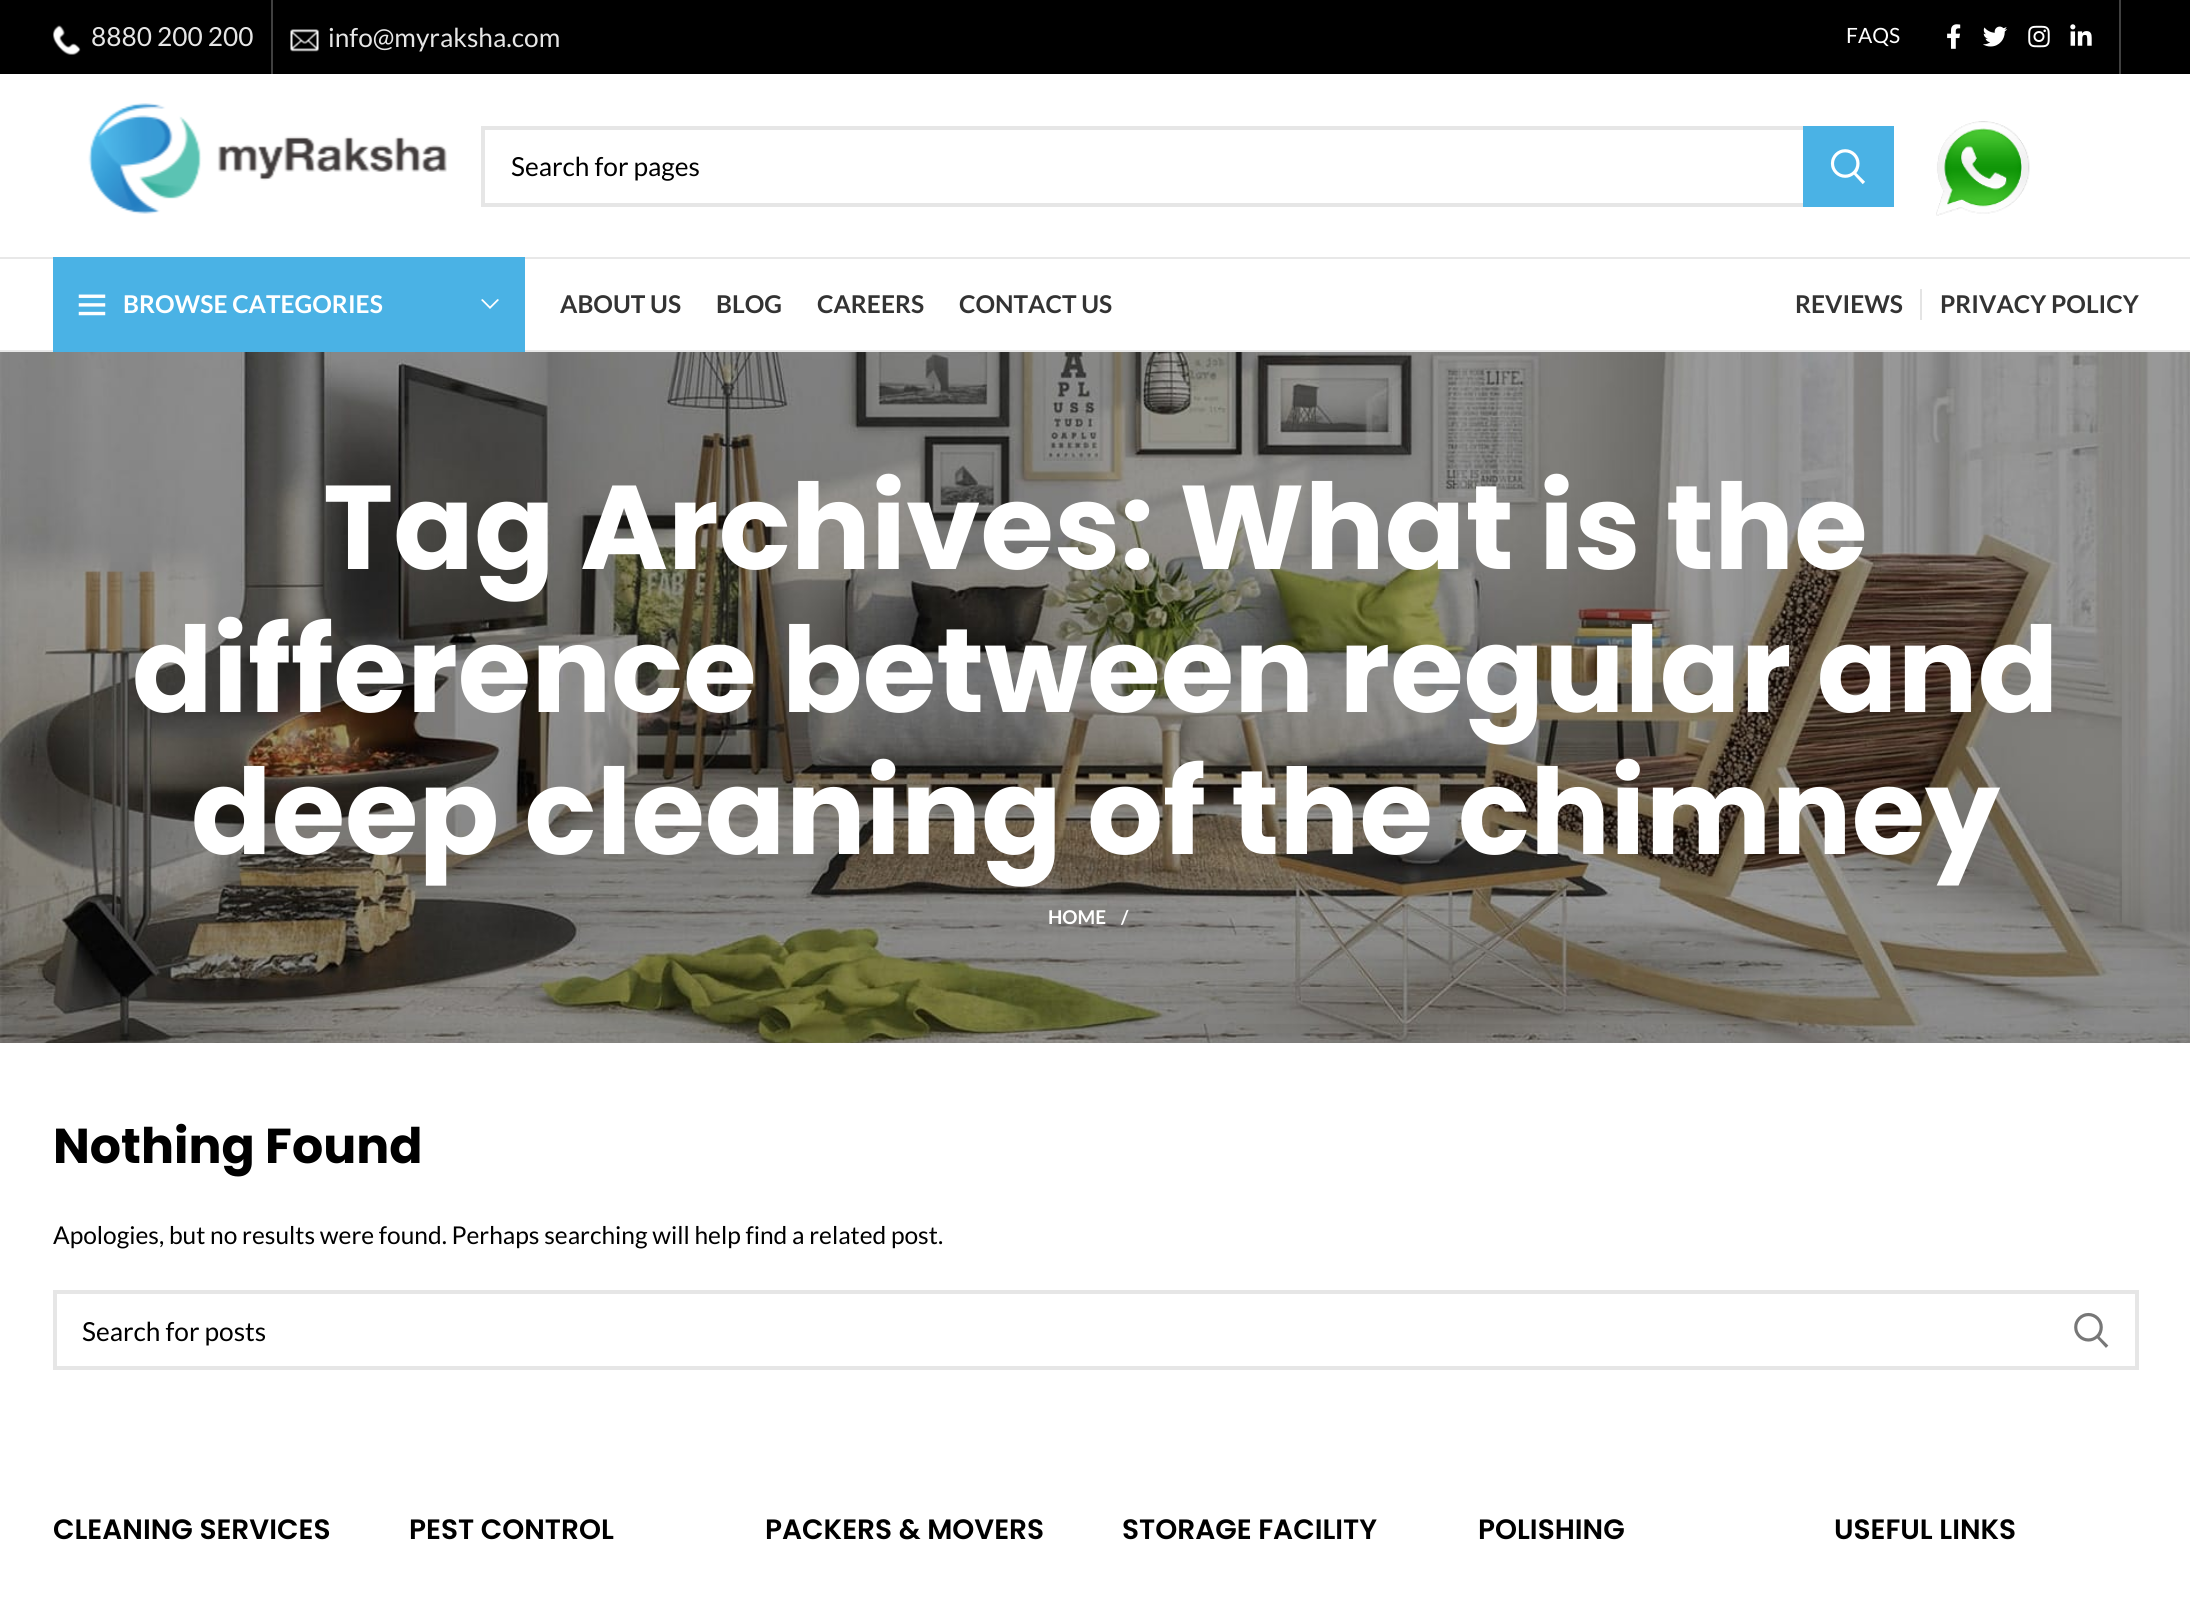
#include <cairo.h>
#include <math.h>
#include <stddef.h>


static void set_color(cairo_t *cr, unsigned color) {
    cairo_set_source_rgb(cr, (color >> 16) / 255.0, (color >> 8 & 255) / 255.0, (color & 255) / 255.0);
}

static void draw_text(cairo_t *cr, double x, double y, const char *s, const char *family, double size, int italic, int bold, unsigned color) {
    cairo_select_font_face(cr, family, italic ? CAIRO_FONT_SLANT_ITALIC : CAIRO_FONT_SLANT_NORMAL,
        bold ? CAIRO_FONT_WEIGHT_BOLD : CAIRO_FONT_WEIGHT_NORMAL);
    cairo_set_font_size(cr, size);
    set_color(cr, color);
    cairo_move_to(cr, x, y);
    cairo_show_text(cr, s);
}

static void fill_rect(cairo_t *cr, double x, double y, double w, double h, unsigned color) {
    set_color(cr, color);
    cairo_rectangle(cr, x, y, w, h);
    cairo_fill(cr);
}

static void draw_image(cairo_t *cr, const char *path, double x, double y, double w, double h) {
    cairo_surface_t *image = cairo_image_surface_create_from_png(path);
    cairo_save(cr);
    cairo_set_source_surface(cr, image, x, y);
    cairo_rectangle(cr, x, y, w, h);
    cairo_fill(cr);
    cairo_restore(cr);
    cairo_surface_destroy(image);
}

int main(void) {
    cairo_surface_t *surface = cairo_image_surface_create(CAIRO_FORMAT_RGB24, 2190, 1603);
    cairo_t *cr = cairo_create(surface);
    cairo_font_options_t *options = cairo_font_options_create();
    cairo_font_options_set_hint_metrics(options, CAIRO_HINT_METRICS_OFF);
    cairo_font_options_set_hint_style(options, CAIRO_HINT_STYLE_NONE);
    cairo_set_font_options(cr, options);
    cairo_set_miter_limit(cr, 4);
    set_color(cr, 0xFFFFFF);
    cairo_paint(cr);
    fill_rect(cr, 0, 0, 2190, 74, 0x000000);
    draw_image(cr, "assets/img1.png", 52, 25, 29, 30);
    draw_text(cr, 91, 46, "8880 200 200", "Lato", 26.25, 0, 0, 0xE6E6E6);
    fill_rect(cr, 271, 0, 2, 74, 0x404040);
    draw_image(cr, "assets/img2.png", 290, 29, 29, 23);
    draw_text(cr, 328, 47, "info@myraksha.com", "Lato", 26.25, 0, 0, 0xE6E6E6);
    draw_text(cr, 1846, 43, "FAQS", "Lato", 21, 0, 0, 0xFFFFFF);
    draw_image(cr, "assets/img3.png", 1947, 24, 14, 25);
    draw_image(cr, "assets/img4.png", 1983, 26, 25, 21);
    draw_image(cr, "assets/img5.png", 2028, 25, 22, 23);
    draw_image(cr, "assets/img6.png", 2070, 24, 22, 22);
    fill_rect(cr, 2119, 0, 2, 74, 0x404040);
    fill_rect(cr, 0, 257, 2190, 2, 0xE8E8E8);
    draw_image(cr, "assets/img7.png", 88, 103, 359, 111);
    cairo_rectangle(cr, 483, 128, 1409, 77);
    set_color(cr, 0xE6E6E6);
    cairo_set_line_width(cr, 4);
    cairo_stroke(cr);
    draw_text(cr, 511, 176, "Search for pages", "Lato", 26.25, 0, 0, 0x000000);
    fill_rect(cr, 1803, 126, 91, 81, 0x4AB2E5);
    draw_image(cr, "assets/img8.png", 1830, 149, 35, 36);
    draw_image(cr, "assets/img9.png", 1936, 121, 94, 95);
    fill_rect(cr, 0, 350, 2190, 2, 0xE8E8E8);
    fill_rect(cr, 53, 257, 472, 95, 0x4AB2E5);
    draw_image(cr, "assets/img10.png", 78, 294, 28, 22);
    draw_text(cr, 123, 313, "BROWSE CATEGORIES", "Lato", 24.5, 0, 1, 0xFFFFFF);
    cairo_new_path(cr);
    cairo_move_to(cr, 497.5, 299);
    cairo_line_to(cr, 499, 300);
    cairo_line_to(cr, 490, 309);
    cairo_line_to(cr, 481, 300);
    cairo_line_to(cr, 482.5, 299);
    cairo_line_to(cr, 490, 306.5);
    cairo_close_path(cr);
    cairo_fill(cr);
    draw_text(cr, 560, 313, "ABOUT US", "Lato", 24.5, 0, 1, 0x333333);
    draw_text(cr, 716, 313, "BLOG", "Lato", 24.5, 0, 1, 0x333333);
    draw_text(cr, 817, 313, "CAREERS", "Lato", 24.5, 0, 1, 0x333333);
    draw_text(cr, 959, 313, "CONTACT US", "Lato", 24.5, 0, 1, 0x333333);
    draw_text(cr, 1795, 313, "REVIEWS", "Lato", 24.5, 0, 1, 0x333333);
    fill_rect(cr, 1920, 289, 2, 31, 0xE4E4E4);
    draw_text(cr, 1940, 313, "PRIVACY POLICY", "Lato", 24.5, 0, 1, 0x333333);
    draw_image(cr, "assets/img11.png", 0, 352, 2190, 691);
    draw_text(cr, 323, 569, "Tag Archives: What is the", "Poppins", 119, 0, 1, 0xFFFFFF);
    draw_text(cr, 132, 712, "difference between regular and", "Poppins", 119, 0, 1, 0xFFFFFF);
    draw_text(cr, 191, 854, "deep cleaning of the chimney", "Poppins", 119, 0, 1, 0xFFFFFF);
    draw_text(cr, 1048, 924, "HOME", "Lato", 19, 0, 1, 0xFFFFFF);
    draw_text(cr, 1121, 924, "/", "Lato", 19, 0, 1, 0xFFFFFF);
    draw_text(cr, 53, 1163, "Nothing Found", "Poppins", 49, 0, 1, 0x000000);
    draw_text(cr, 53, 1244, "Apologies, but no results were found. Perhaps searching will help find a related post.", "Lato", 24.5, 0, 0, 0x000000);
    cairo_rectangle(cr, 55, 1292, 2082, 76);
    set_color(cr, 0xE6E6E6);
    cairo_stroke(cr);
    draw_text(cr, 82, 1341, "Search for posts", "Lato", 26.25, 0, 0, 0x000000);
    draw_image(cr, "assets/img12.png", 2074, 1312, 35, 36);
    draw_text(cr, 53, 1539, "CLEANING SERVICES", "Poppins SemiBold", 28, 0, 0, 0x000000);
    draw_text(cr, 409, 1539, "PEST CONTROL", "Poppins SemiBold", 28, 0, 0, 0x000000);
    draw_text(cr, 765, 1539, "PACKERS & MOVERS", "Poppins SemiBold", 28, 0, 0, 0x000000);
    draw_text(cr, 1122, 1539, "STORAGE FACILITY", "Poppins SemiBold", 28, 0, 0, 0x000000);
    draw_text(cr, 1478, 1539, "POLISHING", "Poppins SemiBold", 28, 0, 0, 0x000000);
    draw_text(cr, 1834, 1539, "USEFUL LINKS", "Poppins SemiBold", 28, 0, 0, 0x000000);
    cairo_surface_write_to_png(surface, "output.png");
    cairo_font_options_destroy(options);
    cairo_destroy(cr);
    cairo_surface_destroy(surface);
    return 0;
}
